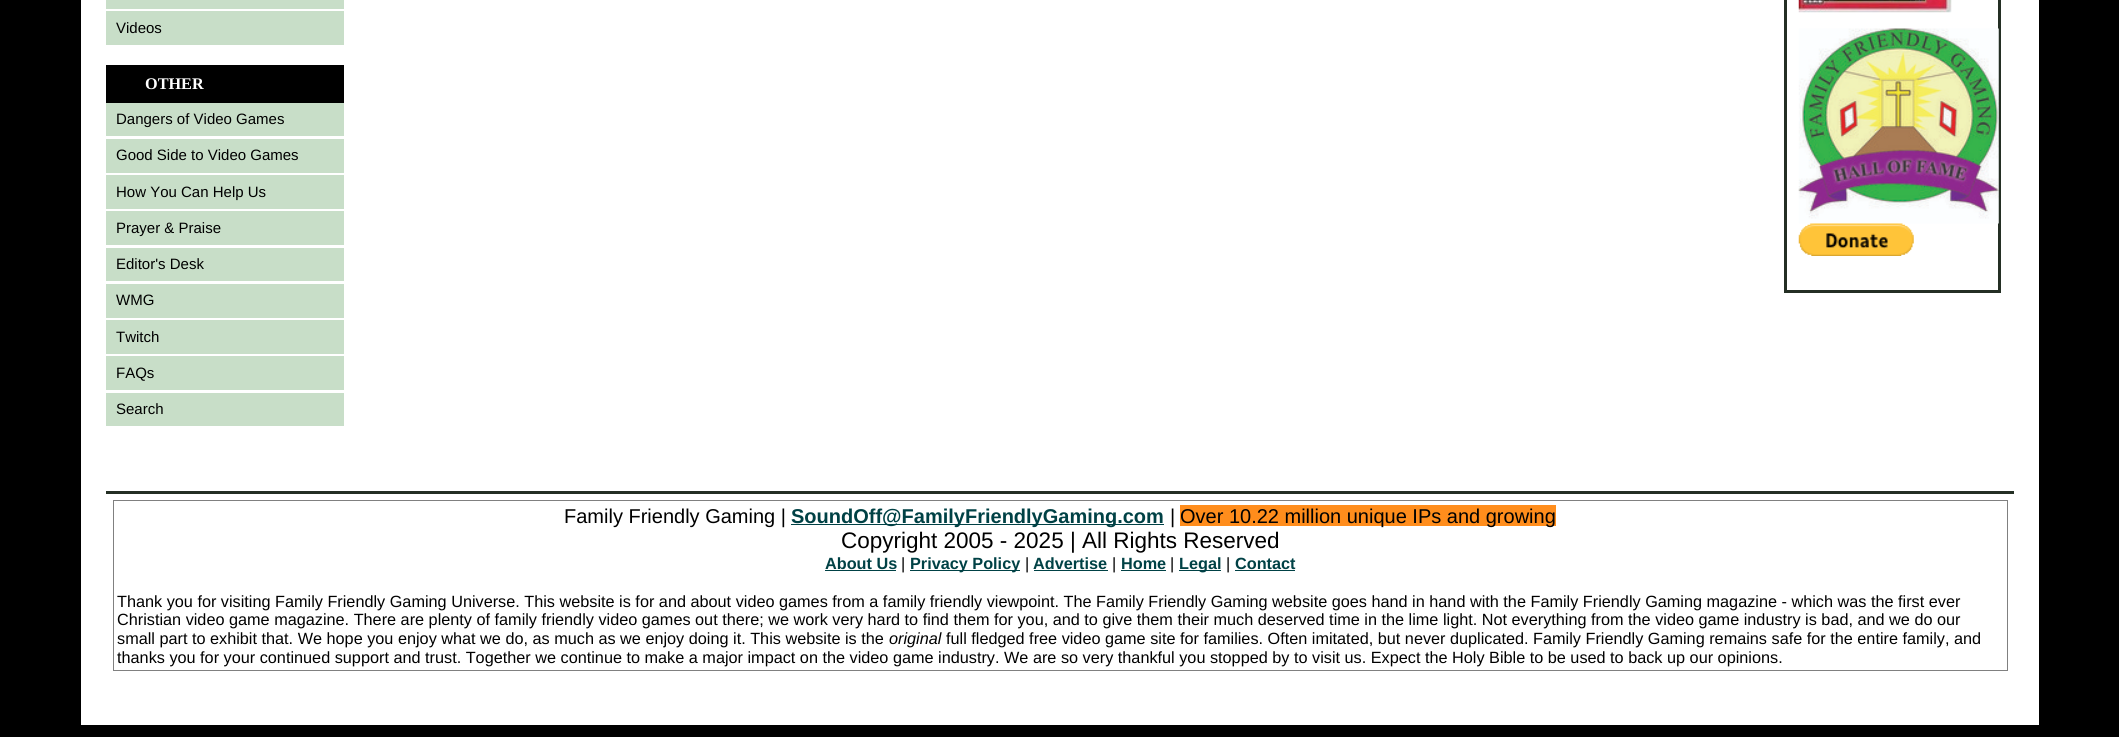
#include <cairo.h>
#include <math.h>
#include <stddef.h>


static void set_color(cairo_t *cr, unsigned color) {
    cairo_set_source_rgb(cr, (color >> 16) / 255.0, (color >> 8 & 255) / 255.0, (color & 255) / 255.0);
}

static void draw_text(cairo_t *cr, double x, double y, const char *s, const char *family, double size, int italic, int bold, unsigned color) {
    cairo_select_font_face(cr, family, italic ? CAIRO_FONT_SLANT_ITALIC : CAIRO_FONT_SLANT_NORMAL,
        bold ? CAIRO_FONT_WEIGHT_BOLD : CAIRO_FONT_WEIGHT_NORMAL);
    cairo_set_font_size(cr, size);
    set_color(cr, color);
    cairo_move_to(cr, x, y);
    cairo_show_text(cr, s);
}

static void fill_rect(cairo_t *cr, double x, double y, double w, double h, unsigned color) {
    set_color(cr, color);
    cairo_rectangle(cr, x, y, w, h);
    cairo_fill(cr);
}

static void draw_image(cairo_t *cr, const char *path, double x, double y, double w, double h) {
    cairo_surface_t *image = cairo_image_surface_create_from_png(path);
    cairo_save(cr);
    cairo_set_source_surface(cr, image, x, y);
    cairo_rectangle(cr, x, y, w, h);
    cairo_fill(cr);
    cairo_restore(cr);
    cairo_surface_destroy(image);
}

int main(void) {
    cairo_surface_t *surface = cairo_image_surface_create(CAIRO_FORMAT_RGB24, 2119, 737);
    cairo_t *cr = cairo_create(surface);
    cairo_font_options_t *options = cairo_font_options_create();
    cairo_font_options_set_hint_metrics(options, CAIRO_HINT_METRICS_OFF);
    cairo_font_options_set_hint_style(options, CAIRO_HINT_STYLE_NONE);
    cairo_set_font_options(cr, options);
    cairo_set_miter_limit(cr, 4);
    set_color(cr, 0x000000);
    cairo_paint(cr);
    fill_rect(cr, 81, 0, 1958, 725, 0xFFFFFF);
    fill_rect(cr, 106, 0, 238, 9, 0xC8DEC8);
    fill_rect(cr, 106, 11, 238, 34, 0xC8DEC8);
    draw_text(cr, 116, 33, "Videos", "Liberation Sans", 15, 0, 0, 0x000000);
    fill_rect(cr, 106, 65, 238, 38, 0x000000);
    draw_text(cr, 145, 89, "OTHER", "Liberation Serif", 16.25, 0, 1, 0xFFFFFF);
    fill_rect(cr, 106, 103, 238, 33, 0xC8DEC8);
    draw_text(cr, 116, 124, "Dangers of Video Games", "Liberation Sans", 15, 0, 0, 0x000000);
    fill_rect(cr, 106, 139, 238, 34, 0xC8DEC8);
    draw_text(cr, 116, 160, "Good Side to Video Games", "Liberation Sans", 15, 0, 0, 0x000000);
    fill_rect(cr, 106, 175, 238, 34, 0xC8DEC8);
    draw_text(cr, 116, 197, "How You Can Help Us", "Liberation Sans", 15, 0, 0, 0x000000);
    fill_rect(cr, 106, 211, 238, 34, 0xC8DEC8);
    draw_text(cr, 116, 233, "Prayer & Praise", "Liberation Sans", 15, 0, 0, 0x000000);
    fill_rect(cr, 106, 248, 238, 33, 0xC8DEC8);
    draw_text(cr, 116, 269, "Editor's Desk", "Liberation Sans", 15, 0, 0, 0x000000);
    fill_rect(cr, 106, 284, 238, 34, 0xC8DEC8);
    draw_text(cr, 116, 305, "WMG", "Liberation Sans", 15, 0, 0, 0x000000);
    fill_rect(cr, 106, 320, 238, 34, 0xC8DEC8);
    draw_text(cr, 116, 342, "Twitch", "Liberation Sans", 15, 0, 0, 0x000000);
    fill_rect(cr, 106, 356, 238, 34, 0xC8DEC8);
    draw_text(cr, 116, 378, "FAQs", "Liberation Sans", 15, 0, 0, 0x000000);
    fill_rect(cr, 106, 393, 238, 33, 0xC8DEC8);
    draw_text(cr, 116, 414, "Search", "Liberation Sans", 15, 0, 0, 0x000000);
    cairo_rectangle(cr, 1785.5, -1.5, 214, 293);
    set_color(cr, 0x242F24);
    cairo_set_line_width(cr, 3);
    cairo_stroke(cr);
    draw_image(cr, "assets/img1.png", 1798, 0, 154, 13);
    draw_image(cr, "assets/img2.png", 1798, 28, 201, 196);
    draw_image(cr, "assets/img3.png", 1798, 223, 116, 33);
    fill_rect(cr, 106, 491, 1908, 3, 0x242F24);
    cairo_rectangle(cr, 113.5, 500.5, 1894, 170);
    set_color(cr, 0x808080);
    cairo_set_line_width(cr, 1);
    cairo_stroke(cr);
    draw_text(cr, 564, 523, "Family Friendly Gaming |", "Liberation Sans", 20, 0, 0, 0x000000);
    fill_rect(cr, 791, 524, 373, 1, 0x004145);
    draw_text(cr, 791, 523, "SoundOff@FamilyFriendlyGaming.com", "Liberation Sans", 20, 0, 1, 0x004145);
    draw_text(cr, 1170, 523, "|", "Liberation Sans", 20, 0, 0, 0x000000);
    fill_rect(cr, 1180, 505, 376, 21, 0xFF8D1C);
    draw_text(cr, 1180, 523, "Over 10.22 million unique IPs and growing", "Liberation Sans", 20, 0, 0, 0x000000);
    draw_text(cr, 841, 548, "Copyright 2005 - 2025 | All Rights Reserved", "Liberation Sans", 22.5, 0, 0, 0x000000);
    draw_text(cr, 825, 569, "About Us", "Liberation Sans", 16.25, 0, 1, 0x004145);
    fill_rect(cr, 825, 570, 71, 1, 0x004145);
    draw_text(cr, 901, 569, "|", "Liberation Sans", 16.25, 0, 0, 0x000000);
    fill_rect(cr, 910, 570, 110, 1, 0x004145);
    draw_text(cr, 910, 569, "Privacy Policy", "Liberation Sans", 16.25, 0, 1, 0x004145);
    draw_text(cr, 1025, 569, "|", "Liberation Sans", 16.25, 0, 0, 0x000000);
    draw_text(cr, 1033, 569, "Advertise", "Liberation Sans", 16.25, 0, 1, 0x004145);
    fill_rect(cr, 1034, 570, 74, 1, 0x004145);
    draw_text(cr, 1112, 569, "|", "Liberation Sans", 16.25, 0, 0, 0x000000);
    draw_text(cr, 1121, 569, "Home", "Liberation Sans", 16.25, 0, 1, 0x004145);
    fill_rect(cr, 1121, 570, 45, 1, 0x004145);
    draw_text(cr, 1170, 569, "|", "Liberation Sans", 16.25, 0, 0, 0x000000);
    fill_rect(cr, 1179, 570, 42, 1, 0x004145);
    draw_text(cr, 1179, 569, "Legal", "Liberation Sans", 16.25, 0, 1, 0x004145);
    draw_text(cr, 1226, 569, "|", "Liberation Sans", 16.25, 0, 0, 0x000000);
    draw_text(cr, 1235, 569, "Contact", "Liberation Sans", 16.25, 0, 1, 0x004145);
    fill_rect(cr, 1235, 570, 60, 1, 0x004145);
    draw_text(cr, 117, 607, "Thank you for visiting Family Friendly Gaming Universe. This website is for and about video games from a family friendly viewpoint. The Family Friendly Gaming website goes hand in hand with the Family Friendly Gaming magazine - which was the first ever", "Liberation Sans", 16.25, 0, 0, 0x000000);
    draw_text(cr, 117, 625, "Christian video game magazine. There are plenty of family friendly video games out there; we work very hard to find them for you, and to give them their much deserved time in the lime light. Not everything from the video game industry is bad, and we do our", "Liberation Sans", 16.25, 0, 0, 0x000000);
    draw_text(cr, 117, 644, "small part to exhibit that. We hope you enjoy what we do, as much as we enjoy doing it. This website is the", "Liberation Sans", 16.25, 0, 0, 0x000000);
    draw_text(cr, 889, 644, "original", "Liberation Sans", 16.25, 1, 0, 0x000000);
    draw_text(cr, 946, 644, "full fledged free video game site for families. Often imitated, but never duplicated. Family Friendly Gaming remains safe for the entire family, and", "Liberation Sans", 16.25, 0, 0, 0x000000);
    draw_text(cr, 117, 663, "thanks you for your continued support and trust. Together we continue to make a major impact on the video game industry. We are so very thankful you stopped by to visit us. Expect the Holy Bible to be used to back up our opinions.", "Liberation Sans", 16.25, 0, 0, 0x000000);
    cairo_surface_write_to_png(surface, "output.png");
    cairo_font_options_destroy(options);
    cairo_destroy(cr);
    cairo_surface_destroy(surface);
    return 0;
}
